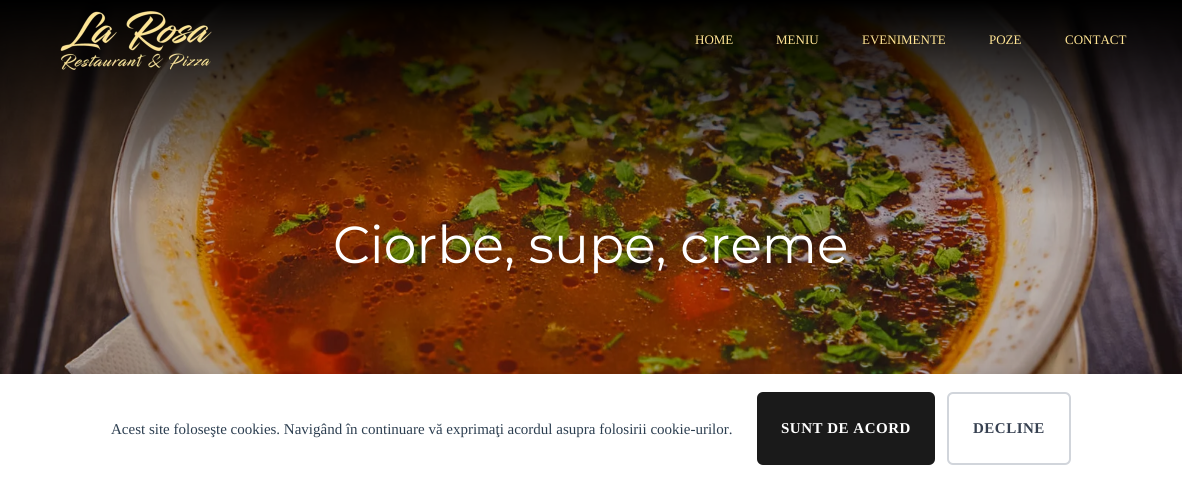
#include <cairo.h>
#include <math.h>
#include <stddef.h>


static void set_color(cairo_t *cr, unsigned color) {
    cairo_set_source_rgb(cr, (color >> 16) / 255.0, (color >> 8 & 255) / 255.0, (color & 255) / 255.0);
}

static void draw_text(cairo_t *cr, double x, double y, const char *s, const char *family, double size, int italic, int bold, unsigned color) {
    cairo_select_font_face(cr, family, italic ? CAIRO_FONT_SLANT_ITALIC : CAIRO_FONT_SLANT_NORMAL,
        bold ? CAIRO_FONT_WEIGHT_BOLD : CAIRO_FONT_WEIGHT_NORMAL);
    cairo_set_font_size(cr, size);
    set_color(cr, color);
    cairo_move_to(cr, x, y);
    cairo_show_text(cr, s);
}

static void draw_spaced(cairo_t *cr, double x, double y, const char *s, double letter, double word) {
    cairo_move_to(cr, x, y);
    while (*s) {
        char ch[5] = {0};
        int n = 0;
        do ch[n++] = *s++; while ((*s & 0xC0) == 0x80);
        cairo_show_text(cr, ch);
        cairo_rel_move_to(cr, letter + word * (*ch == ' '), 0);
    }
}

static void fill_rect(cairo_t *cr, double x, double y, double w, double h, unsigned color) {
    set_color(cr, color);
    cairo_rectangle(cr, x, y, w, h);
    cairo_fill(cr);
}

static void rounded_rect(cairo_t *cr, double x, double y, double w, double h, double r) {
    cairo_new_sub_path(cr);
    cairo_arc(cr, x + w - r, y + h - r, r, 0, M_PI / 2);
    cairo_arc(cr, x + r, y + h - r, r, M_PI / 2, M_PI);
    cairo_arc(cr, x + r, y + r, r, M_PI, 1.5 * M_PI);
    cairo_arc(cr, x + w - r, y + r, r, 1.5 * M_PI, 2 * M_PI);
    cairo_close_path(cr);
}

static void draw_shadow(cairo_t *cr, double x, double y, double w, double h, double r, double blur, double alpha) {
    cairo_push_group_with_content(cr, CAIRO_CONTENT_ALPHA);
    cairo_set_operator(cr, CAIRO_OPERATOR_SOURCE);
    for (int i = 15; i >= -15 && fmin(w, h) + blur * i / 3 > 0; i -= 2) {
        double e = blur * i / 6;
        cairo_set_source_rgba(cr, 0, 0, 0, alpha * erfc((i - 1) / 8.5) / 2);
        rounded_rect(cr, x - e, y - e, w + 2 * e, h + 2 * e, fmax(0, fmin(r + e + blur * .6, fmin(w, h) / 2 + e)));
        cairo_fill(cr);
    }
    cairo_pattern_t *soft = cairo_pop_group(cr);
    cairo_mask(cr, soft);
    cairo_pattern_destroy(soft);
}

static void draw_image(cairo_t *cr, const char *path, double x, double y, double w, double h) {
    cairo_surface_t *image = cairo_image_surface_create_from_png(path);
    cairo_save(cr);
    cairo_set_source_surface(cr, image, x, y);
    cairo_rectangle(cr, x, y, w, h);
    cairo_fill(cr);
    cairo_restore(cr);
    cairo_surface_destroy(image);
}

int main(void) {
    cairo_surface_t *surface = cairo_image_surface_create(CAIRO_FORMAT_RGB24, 1182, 483);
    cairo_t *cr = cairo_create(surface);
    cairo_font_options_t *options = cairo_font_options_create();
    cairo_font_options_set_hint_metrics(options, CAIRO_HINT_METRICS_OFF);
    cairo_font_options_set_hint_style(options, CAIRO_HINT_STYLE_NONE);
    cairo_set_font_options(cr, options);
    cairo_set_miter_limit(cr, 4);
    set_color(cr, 0xFFFFFF);
    cairo_paint(cr);
    draw_image(cr, "assets/img2.png", 0, 0, 1182, 374);
    draw_image(cr, "assets/img1.png", 60, 11, 152, 59);
    draw_text(cr, 695, 44, "HOME", "Liberation Serif", 13, 0, 0, 0xFFE493);
    draw_text(cr, 776, 44, "MENIU", "Liberation Serif", 13, 0, 0, 0xFFE493);
    draw_text(cr, 862, 44, "EVENIMENTE", "Liberation Serif", 13, 0, 0, 0xFFE493);
    draw_text(cr, 989, 44, "POZE", "Liberation Serif", 13, 0, 0, 0xFFE493);
    draw_text(cr, 1065, 44, "CONTACT", "Liberation Serif", 13, 0, 0, 0xFFE493);
    draw_text(cr, 333, 263, "Ciorbe, supe, creme", "Montserrat Thin", 52, 0, 0, 0xFFFFFF);
    set_color(cr, 0x000000);
    draw_shadow(cr, 0, 372, 1182, 109, 0, 5, 0.08);
    fill_rect(cr, 0, 374, 1182, 109, 0xFFFFFF);
    draw_text(cr, 111, 434, "Acest site foloseşte cookies. Navigând în continuare vă exprimaţi acordul asupra folosirii cookie-urilor.", "Liberation Serif", 15, 0, 0, 0x2C3E50);
    set_color(cr, 0x1A1A1A);
    rounded_rect(cr, 757, 392, 178, 73, 6);
    cairo_fill(cr);
    cairo_select_font_face(cr, "Liberation Serif", CAIRO_FONT_SLANT_NORMAL, CAIRO_FONT_WEIGHT_BOLD);
    set_color(cr, 0xFFFFFF);
    draw_spaced(cr, 781, 433, "SUNT DE ACORD", 0.5, 0);
    rounded_rect(cr, 948, 393, 122, 71, 5);
    set_color(cr, 0xD1D5DB);
    cairo_stroke(cr);
    set_color(cr, 0x374151);
    draw_spaced(cr, 973, 433, "DECLINE", 0.5, 0);
    cairo_surface_write_to_png(surface, "output.png");
    cairo_font_options_destroy(options);
    cairo_destroy(cr);
    cairo_surface_destroy(surface);
    return 0;
}
